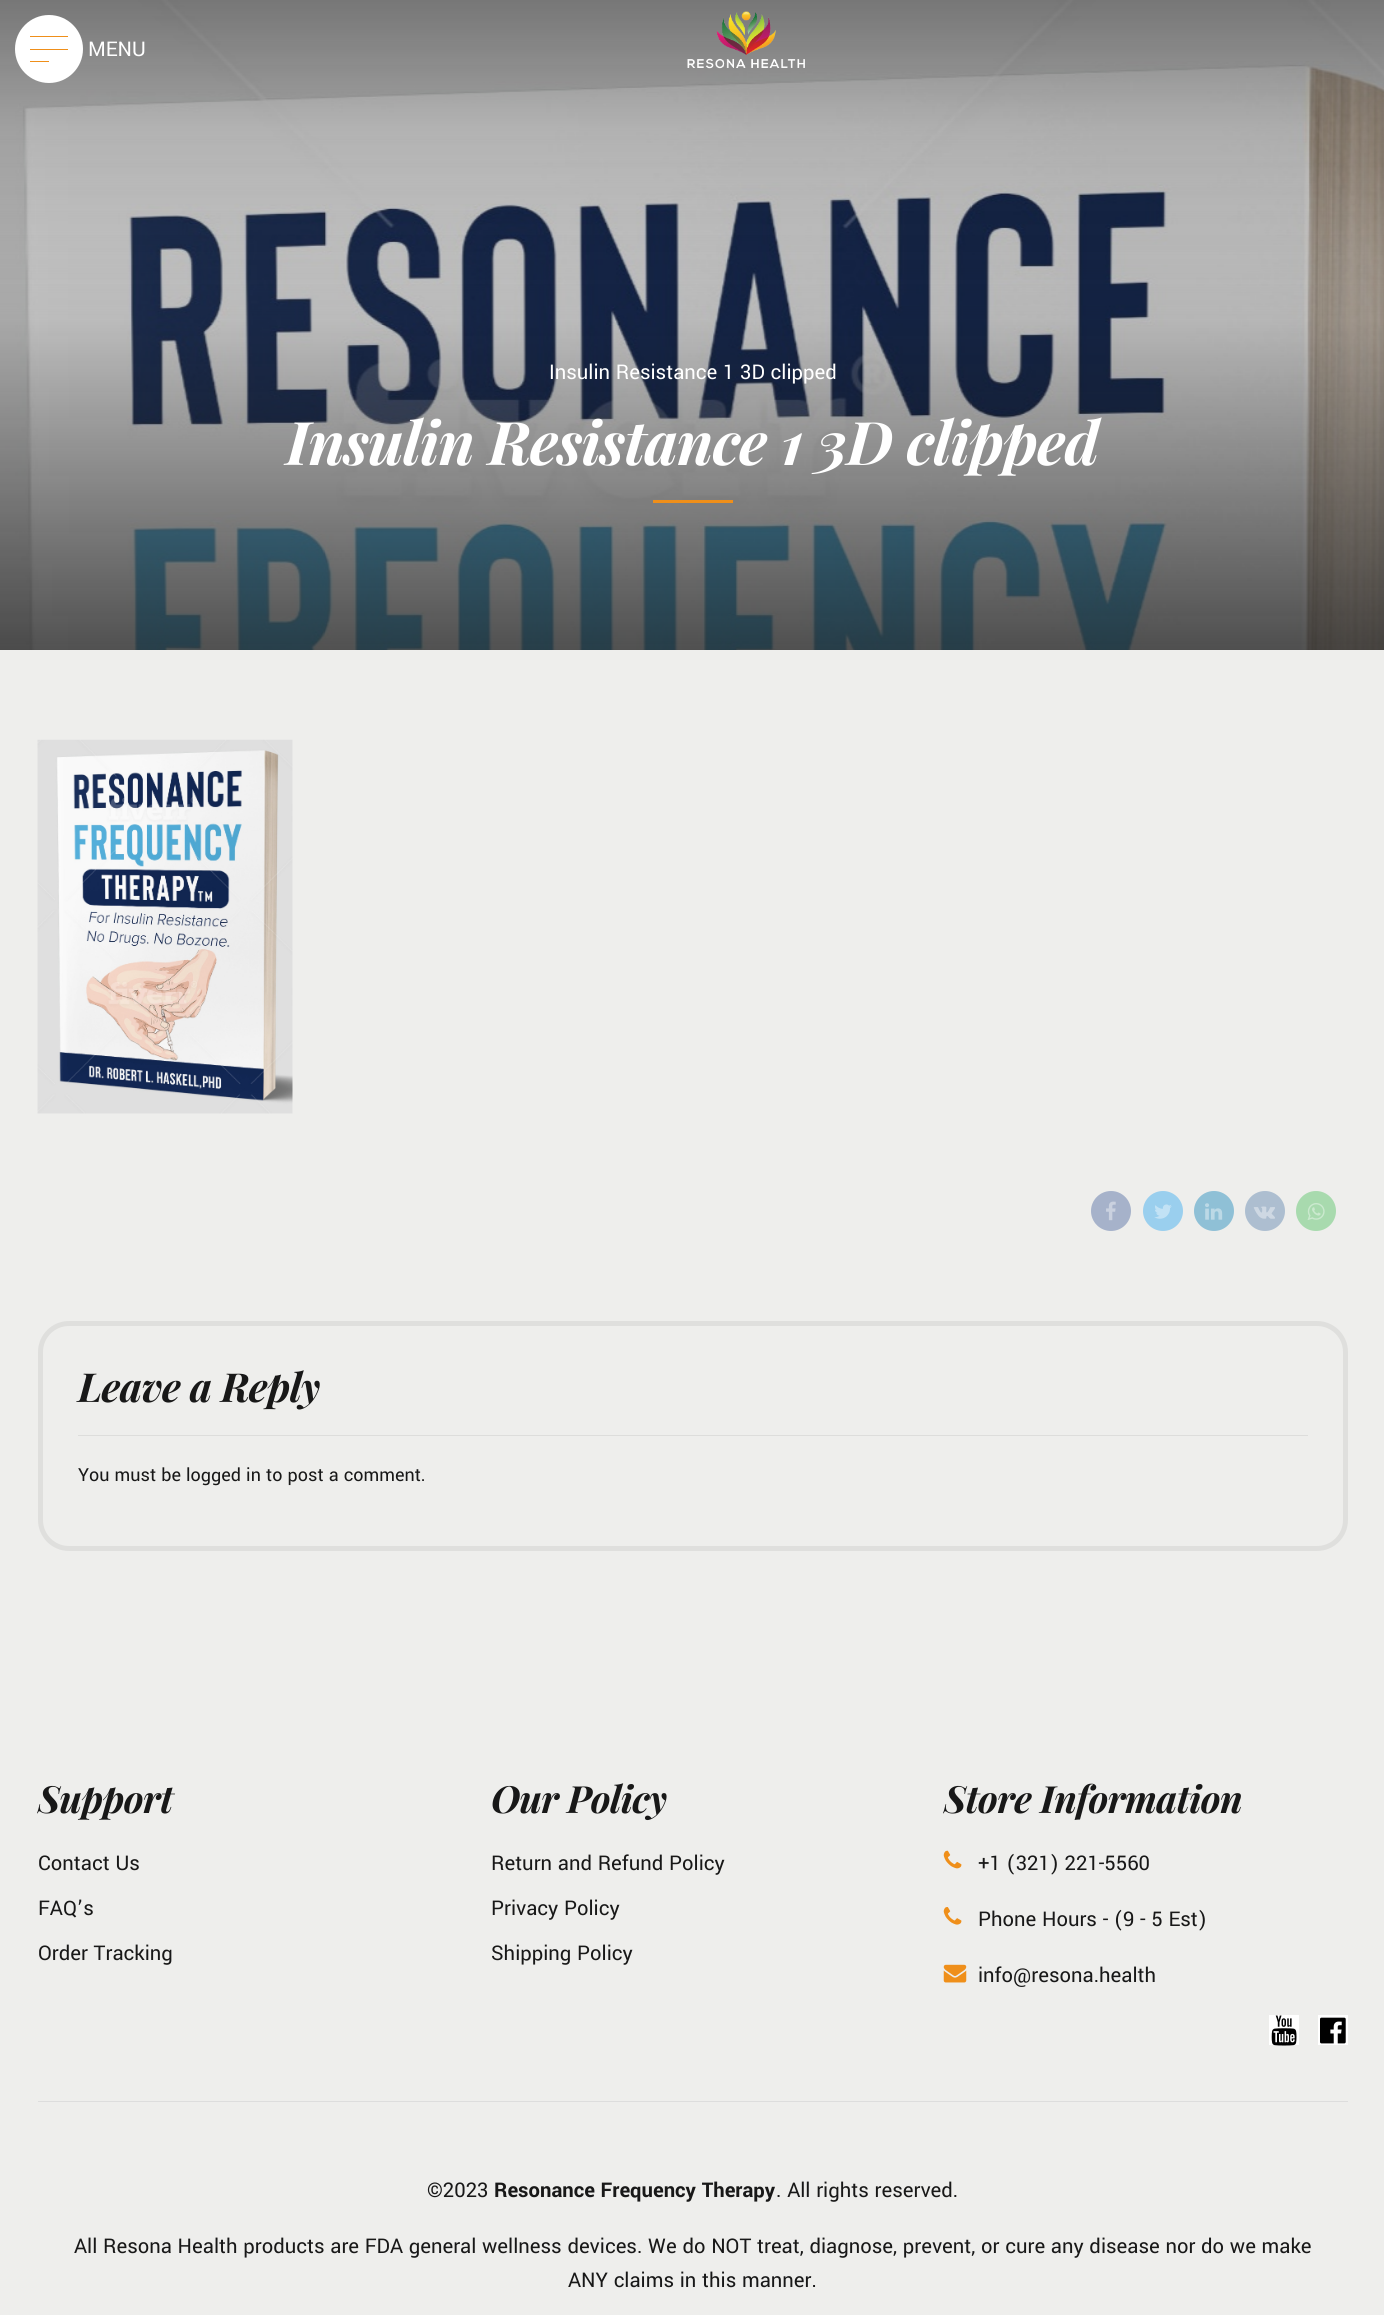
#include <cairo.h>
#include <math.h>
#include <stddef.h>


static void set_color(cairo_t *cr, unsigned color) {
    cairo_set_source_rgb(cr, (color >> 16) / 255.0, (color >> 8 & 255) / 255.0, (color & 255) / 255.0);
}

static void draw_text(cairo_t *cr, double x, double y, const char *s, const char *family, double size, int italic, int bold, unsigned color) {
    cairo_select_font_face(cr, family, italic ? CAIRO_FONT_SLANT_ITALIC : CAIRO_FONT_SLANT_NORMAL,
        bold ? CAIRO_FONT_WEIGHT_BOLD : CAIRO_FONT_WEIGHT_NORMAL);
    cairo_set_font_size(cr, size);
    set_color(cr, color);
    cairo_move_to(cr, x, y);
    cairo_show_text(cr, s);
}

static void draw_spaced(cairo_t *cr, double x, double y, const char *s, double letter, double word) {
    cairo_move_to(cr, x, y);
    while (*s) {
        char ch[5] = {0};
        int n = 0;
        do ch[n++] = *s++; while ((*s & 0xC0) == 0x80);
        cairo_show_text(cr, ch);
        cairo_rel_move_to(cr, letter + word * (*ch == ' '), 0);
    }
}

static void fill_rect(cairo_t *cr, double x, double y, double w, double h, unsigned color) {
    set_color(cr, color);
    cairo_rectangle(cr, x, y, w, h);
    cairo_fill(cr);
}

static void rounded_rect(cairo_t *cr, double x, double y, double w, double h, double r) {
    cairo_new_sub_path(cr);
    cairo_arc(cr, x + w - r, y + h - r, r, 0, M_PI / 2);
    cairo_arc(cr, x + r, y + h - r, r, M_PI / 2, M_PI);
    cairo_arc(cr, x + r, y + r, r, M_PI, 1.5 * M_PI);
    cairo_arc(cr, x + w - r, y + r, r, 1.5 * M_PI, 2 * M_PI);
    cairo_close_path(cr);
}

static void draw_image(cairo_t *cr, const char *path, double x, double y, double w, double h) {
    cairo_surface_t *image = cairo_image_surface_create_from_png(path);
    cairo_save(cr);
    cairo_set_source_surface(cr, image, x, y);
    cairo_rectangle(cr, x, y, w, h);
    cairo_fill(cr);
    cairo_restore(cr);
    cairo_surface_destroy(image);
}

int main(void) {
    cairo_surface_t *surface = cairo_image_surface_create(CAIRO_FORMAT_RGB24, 1384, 2315);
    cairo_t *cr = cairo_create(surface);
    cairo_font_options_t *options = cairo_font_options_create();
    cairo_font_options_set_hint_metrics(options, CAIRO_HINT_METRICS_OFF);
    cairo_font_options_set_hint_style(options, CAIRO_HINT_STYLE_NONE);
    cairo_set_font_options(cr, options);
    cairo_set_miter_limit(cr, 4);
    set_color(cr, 0xEEEEEC);
    cairo_paint(cr);
    draw_image(cr, "assets/img2.png", 0, 0, 1384, 650);
    set_color(cr, 0xFFFFFF);
    cairo_arc(cr, 49, 49, 34, 0, 2 * M_PI);
    cairo_fill(cr);
    fill_rect(cr, 30, 36, 38, 1, 0xEF8F1A);
    fill_rect(cr, 30, 49, 38, 1, 0xEF8F1A);
    fill_rect(cr, 30, 61, 19, 1, 0xEF8F1A);
    draw_text(cr, 88, 56, "MENU", "Yantramanav", 22.5, 0, 0, 0xFFFFFF);
    draw_image(cr, "assets/img1.png", 687, 11, 118, 58);
    draw_text(cr, 549, 379, "Insulin Resistance 1 3D clipped", "Yantramanav", 22.5, 0, 0, 0xFFFFFF);
    cairo_select_font_face(cr, "Playfair Display", CAIRO_FONT_SLANT_ITALIC, CAIRO_FONT_WEIGHT_BOLD);
    cairo_set_font_size(cr, 60);
    draw_spaced(cr, 286, 465, "Insulin Resistance 1 3D clipped", -0.9, 0);
    fill_rect(cr, 653, 500, 80, 3, 0xEF8F1A);
    draw_image(cr, "assets/img3.png", 37, 739, 256, 375);
    set_color(cr, 0xA6B2CA);
    cairo_arc(cr, 1111, 1211, 20, 0, 2 * M_PI);
    cairo_fill(cr);
    draw_image(cr, "assets/img4.png", 1106, 1201, 10, 20);
    set_color(cr, 0x9ACFEE);
    cairo_arc(cr, 1163, 1211, 20, 0, 2 * M_PI);
    cairo_fill(cr);
    draw_image(cr, "assets/img5.png", 1154, 1204, 18, 15);
    set_color(cr, 0x8FC0D6);
    cairo_arc(cr, 1214, 1211, 20, 0, 2 * M_PI);
    cairo_fill(cr);
    draw_image(cr, "assets/img6.png", 1205, 1203, 18, 17);
    set_color(cr, 0xADBED0);
    cairo_arc(cr, 1265, 1211, 20, 0, 2 * M_PI);
    cairo_fill(cr);
    draw_image(cr, "assets/img7.png", 1253, 1206, 22, 13);
    set_color(cr, 0xA8DAAE);
    cairo_arc(cr, 1316, 1211, 20, 0, 2 * M_PI);
    cairo_fill(cr);
    draw_image(cr, "assets/img8.png", 1307, 1203, 18, 17);
    rounded_rect(cr, 40.5, 1323.5, 1305, 225, 28.5);
    set_color(cr, 0xDFDFDD);
    cairo_set_line_width(cr, 5);
    cairo_stroke(cr);
    fill_rect(cr, 78, 1435, 1230, 1, 0xDDDDDB);
    cairo_set_font_size(cr, 40);
    set_color(cr, 0x181818);
    draw_spaced(cr, 78, 1402, "Leave a Reply", -0.6, 0);
    draw_text(cr, 78, 1481, "You must be logged in to post a comment.", "Yantramanav", 20, 0, 0, 0x181818);
    cairo_select_font_face(cr, "Playfair Display", CAIRO_FONT_SLANT_ITALIC, CAIRO_FONT_WEIGHT_BOLD);
    cairo_set_font_size(cr, 37.5);
    draw_spaced(cr, 38, 1813, "Support", -0.6, 0);
    draw_text(cr, 38, 1870, "Contact Us", "Yantramanav", 22.5, 0, 0, 0x181818);
    draw_text(cr, 38, 1915, "FAQ’s", "Yantramanav", 22.5, 0, 0, 0x181818);
    draw_text(cr, 38, 1960, "Order Tracking", "Yantramanav", 22.5, 0, 0, 0x181818);
    cairo_select_font_face(cr, "Playfair Display", CAIRO_FONT_SLANT_ITALIC, CAIRO_FONT_WEIGHT_BOLD);
    cairo_set_font_size(cr, 37.5);
    draw_spaced(cr, 491, 1813, "Our Policy", -0.6, 0);
    draw_text(cr, 491, 1870, "Return and Refund Policy", "Yantramanav", 22.5, 0, 0, 0x181818);
    draw_text(cr, 491, 1915, "Privacy Policy", "Yantramanav", 22.5, 0, 0, 0x181818);
    draw_text(cr, 491, 1960, "Shipping Policy", "Yantramanav", 22.5, 0, 0, 0x181818);
    cairo_select_font_face(cr, "Playfair Display", CAIRO_FONT_SLANT_ITALIC, CAIRO_FONT_WEIGHT_BOLD);
    cairo_set_font_size(cr, 37.5);
    draw_spaced(cr, 944, 1813, "Store Information", -0.6, 0);
    draw_image(cr, "assets/img9.png", 943, 1850, 19, 19);
    draw_text(cr, 978, 1870, "+1 (321) 221-5560", "Yantramanav", 22.5, 0, 0, 0x181818);
    draw_image(cr, "assets/img10.png", 943, 1907, 19, 18);
    draw_text(cr, 978, 1926, "Phone Hours - (9 - 5 Est)", "Yantramanav", 22.5, 0, 0, 0x181818);
    draw_image(cr, "assets/img11.png", 943, 1964, 24, 19);
    draw_text(cr, 978, 1982, "info@resona.health", "Yantramanav", 22.5, 0, 0, 0x181818);
    fill_rect(cr, 1269, 2015, 30, 30, 0xFFFFFF);
    draw_image(cr, "assets/img12.png", 1271, 2015, 26, 31);
    fill_rect(cr, 1318, 2015, 30, 30, 0xFFFFFF);
    draw_image(cr, "assets/img13.png", 1320, 2017, 26, 27);
    fill_rect(cr, 38, 2101, 1310, 1, 0xDDDDDD);
    draw_text(cr, 427, 2197, "©2023", "Yantramanav", 22.5, 0, 0, 0x181818);
    draw_text(cr, 494, 2197, "Resonance Frequency Therapy", "Yantramanav", 22.5, 0, 1, 0x181818);
    draw_text(cr, 776, 2197, ". All rights reserved.", "Yantramanav", 22.5, 0, 0, 0x181818);
    draw_text(cr, 74, 2253, "All Resona Health products are FDA general wellness devices. We do NOT treat, diagnose, prevent, or cure any disease nor do we make", "Yantramanav", 22.5, 0, 0, 0x181818);
    draw_text(cr, 568, 2287, "ANY claims in this manner.", "Yantramanav", 22.5, 0, 0, 0x181818);
    cairo_surface_write_to_png(surface, "output.png");
    cairo_font_options_destroy(options);
    cairo_destroy(cr);
    cairo_surface_destroy(surface);
    return 0;
}
